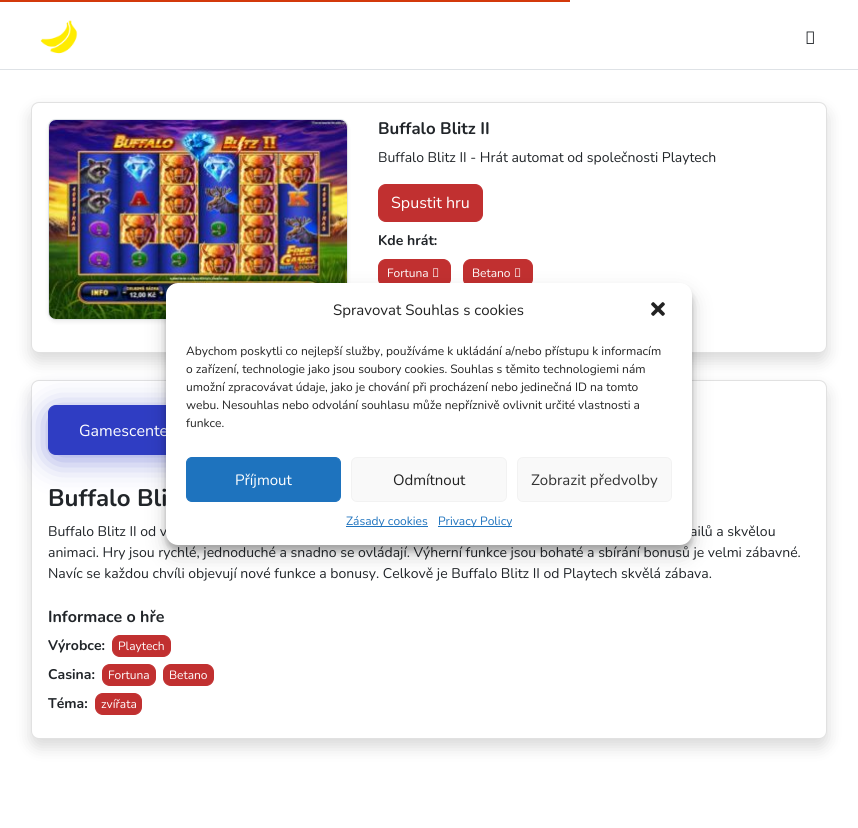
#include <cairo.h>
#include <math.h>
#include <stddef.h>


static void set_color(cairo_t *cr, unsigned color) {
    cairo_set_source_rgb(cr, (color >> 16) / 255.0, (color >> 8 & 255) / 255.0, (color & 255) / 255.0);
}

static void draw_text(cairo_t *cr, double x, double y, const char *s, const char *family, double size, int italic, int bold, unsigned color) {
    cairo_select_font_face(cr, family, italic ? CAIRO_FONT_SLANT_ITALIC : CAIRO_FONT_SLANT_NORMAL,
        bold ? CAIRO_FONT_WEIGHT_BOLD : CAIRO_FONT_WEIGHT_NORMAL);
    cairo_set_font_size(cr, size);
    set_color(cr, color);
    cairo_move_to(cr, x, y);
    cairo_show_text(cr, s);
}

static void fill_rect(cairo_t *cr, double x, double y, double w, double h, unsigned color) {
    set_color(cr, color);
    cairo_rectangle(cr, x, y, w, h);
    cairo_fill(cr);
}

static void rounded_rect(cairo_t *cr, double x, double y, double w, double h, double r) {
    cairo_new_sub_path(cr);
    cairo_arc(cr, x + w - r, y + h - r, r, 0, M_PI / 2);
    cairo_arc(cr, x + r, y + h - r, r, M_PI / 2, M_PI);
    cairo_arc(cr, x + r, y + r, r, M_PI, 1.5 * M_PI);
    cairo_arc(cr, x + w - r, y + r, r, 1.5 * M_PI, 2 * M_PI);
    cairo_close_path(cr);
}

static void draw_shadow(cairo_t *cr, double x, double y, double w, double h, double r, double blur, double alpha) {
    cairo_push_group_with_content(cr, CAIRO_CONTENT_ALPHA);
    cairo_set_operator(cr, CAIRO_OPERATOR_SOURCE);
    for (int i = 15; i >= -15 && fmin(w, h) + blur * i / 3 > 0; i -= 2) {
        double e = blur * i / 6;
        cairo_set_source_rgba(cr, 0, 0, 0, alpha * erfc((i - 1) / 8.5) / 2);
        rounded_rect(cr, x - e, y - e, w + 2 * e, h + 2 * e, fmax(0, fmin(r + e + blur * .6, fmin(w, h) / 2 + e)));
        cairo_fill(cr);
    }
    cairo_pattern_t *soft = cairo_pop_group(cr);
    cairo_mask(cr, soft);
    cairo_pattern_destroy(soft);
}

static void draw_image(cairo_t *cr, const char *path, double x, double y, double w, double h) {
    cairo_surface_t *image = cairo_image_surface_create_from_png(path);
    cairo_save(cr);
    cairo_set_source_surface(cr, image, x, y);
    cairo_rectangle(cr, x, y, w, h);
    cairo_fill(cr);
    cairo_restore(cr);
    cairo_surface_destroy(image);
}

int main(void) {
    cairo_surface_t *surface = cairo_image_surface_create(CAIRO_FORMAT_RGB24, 858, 828);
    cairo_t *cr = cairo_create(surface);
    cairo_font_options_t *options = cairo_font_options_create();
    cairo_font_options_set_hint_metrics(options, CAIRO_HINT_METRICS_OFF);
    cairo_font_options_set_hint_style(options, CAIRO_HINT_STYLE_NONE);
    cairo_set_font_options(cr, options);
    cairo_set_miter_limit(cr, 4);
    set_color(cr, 0xFFFFFF);
    cairo_paint(cr);
    fill_rect(cr, 0, 0, 570, 2, 0xD3390B);
    fill_rect(cr, 0, 69, 858, 1, 0xDEE2E6);
    draw_image(cr, "assets/img1.png", 40, 20, 38, 34);
    draw_image(cr, "assets/img2.png", 806, 31, 8, 13);
    set_color(cr, 0x000000);
    draw_shadow(cr, 31, 110, 796, 251, 8, 8, 0.15);
    set_color(cr, 0xFFFFFF);
    rounded_rect(cr, 31, 102, 796, 251, 8);
    cairo_fill(cr);
    rounded_rect(cr, 31.5, 102.5, 795, 250, 7.5);
    cairo_set_source_rgba(cr, 0, 0, 0, 0.12);
    cairo_set_line_width(cr, 1);
    cairo_stroke(cr);
    set_color(cr, 0x000000);
    draw_shadow(cr, 48, 121, 300, 201, 8, 2, 0.07);
    rounded_rect(cr, 48.5, 119.5, 299, 200, 7.5);
    set_color(cr, 0xDEE2E6);
    cairo_stroke(cr);
    draw_image(cr, "assets/img3.png", 49, 120, 298, 199);
    draw_text(cr, 378, 134, "Buffalo Blitz II", "Nunito", 16.75, 0, 1, 0x212529);
    draw_text(cr, 378, 162, "Buffalo Blitz II - Hrát automat od společnosti Playtech", "Nunito", 14, 0, 0, 0x212529);
    set_color(cr, 0xC13030);
    rounded_rect(cr, 378.5, 184.5, 104, 37, 7.5);
    cairo_fill_preserve(cr);
    cairo_stroke(cr);
    draw_text(cr, 391, 208, "Spustit hru", "Nunito", 16, 0, 0, 0xFFFFFF);
    draw_text(cr, 378, 245, "Kde hrát:", "Nunito", 14, 0, 1, 0x212529);
    set_color(cr, 0xC13030);
    rounded_rect(cr, 378.5, 259.5, 72, 27, 7.5);
    cairo_fill_preserve(cr);
    cairo_stroke(cr);
    draw_text(cr, 387, 277, "Fortuna", "Nunito", 12, 0, 0, 0xFFFFFF);
    draw_image(cr, "assets/img4.png", 433, 268, 6, 9);
    set_color(cr, 0xC13030);
    rounded_rect(cr, 463.5, 259.5, 69, 27, 7.5);
    cairo_fill_preserve(cr);
    cairo_stroke(cr);
    draw_text(cr, 472, 277, "Betano", "Nunito", 12, 0, 0, 0xFFFFFF);
    draw_image(cr, "assets/img4.png", 515, 268, 6, 9);
    set_color(cr, 0x000000);
    draw_shadow(cr, 31, 388, 796, 359, 8, 8, 0.15);
    set_color(cr, 0xFFFFFF);
    rounded_rect(cr, 31, 380, 796, 359, 8);
    cairo_fill(cr);
    rounded_rect(cr, 31.5, 380.5, 795, 358, 7.5);
    cairo_set_source_rgba(cr, 0, 0, 0, 0.12);
    cairo_stroke(cr);
    set_color(cr, 0x2F3DC3);
    draw_shadow(cr, 48, 410, 431, 50, 8, 15, 0.5);
    set_color(cr, 0x2F3DC3);
    rounded_rect(cr, 48.5, 405.5, 430, 49, 7.5);
    cairo_fill_preserve(cr);
    cairo_stroke(cr);
    draw_text(cr, 79, 436, "Gamescente", "Nunito", 16, 0, 0, 0xFFFFFF);
    draw_text(cr, 48, 506, "Buffalo Bli", "Nunito", 24, 0, 1, 0x212529);
    draw_text(cr, 48, 536, "Buffalo Blitz II od v", "Nunito", 14, 0, 0, 0x212529);
    draw_text(cr, 690, 536, "ailů a skvělou", "Nunito", 14, 0, 0, 0x212529);
    draw_text(cr, 48, 557, "animaci. Hry jsou rychlé, jednoduché a snadno se ovládají. Výherní funkce jsou bohaté a sbírání bonusů je velmi zábavné.", "Nunito", 14, 0, 0, 0x212529);
    draw_text(cr, 48, 578, "Navíc se každou chvíli objevují nové funkce a bonusy. Celkově je Buffalo Blitz II od Playtech skvělá zábava.", "Nunito", 14, 0, 0, 0x212529);
    draw_text(cr, 48, 622, "Informace o hře", "Nunito", 16, 0, 1, 0x212529);
    draw_text(cr, 48, 650, "Výrobce:", "Nunito", 14, 0, 1, 0x212529);
    set_color(cr, 0xC13030);
    rounded_rect(cr, 112.5, 635.5, 58, 21, 7.5);
    cairo_fill_preserve(cr);
    cairo_stroke(cr);
    draw_text(cr, 118, 650, "Playtech", "Nunito", 12, 0, 0, 0xFFFFFF);
    draw_text(cr, 48, 679, "Casina:", "Nunito", 14, 0, 1, 0x212529);
    set_color(cr, 0xC13030);
    rounded_rect(cr, 102.5, 664.5, 53, 21, 7.5);
    cairo_fill_preserve(cr);
    cairo_stroke(cr);
    draw_text(cr, 108, 679, "Fortuna", "Nunito", 12, 0, 0, 0xFFFFFF);
    set_color(cr, 0xC13030);
    rounded_rect(cr, 163.5, 664.5, 50, 21, 7.5);
    cairo_fill_preserve(cr);
    cairo_stroke(cr);
    draw_text(cr, 169, 679, "Betano", "Nunito", 12, 0, 0, 0xFFFFFF);
    draw_text(cr, 48, 708, "Téma:", "Nunito", 14, 0, 1, 0x212529);
    set_color(cr, 0xC13030);
    rounded_rect(cr, 95.5, 693.5, 46, 21, 7.5);
    cairo_fill_preserve(cr);
    cairo_stroke(cr);
    draw_text(cr, 101, 708, "zvířata", "Nunito", 12, 0, 0, 0xFFFFFF);
    set_color(cr, 0x000000);
    draw_shadow(cr, 166, 289, 526, 262, 12, 3, 0.23);
    draw_shadow(cr, 166, 293, 526, 262, 12, 10, 0.19);
    set_color(cr, 0xFFFFFF);
    rounded_rect(cr, 166, 283, 526, 262, 12);
    cairo_fill(cr);
    draw_text(cr, 333, 315, "Spravovat Souhlas s cookies", "Nunito", 15, 0, 0, 0x222222);
    draw_image(cr, "assets/img5.png", 651, 302, 14, 14);
    draw_text(cr, 186, 355, "Abychom poskytli co nejlepší služby, používáme k ukládání a/nebo přístupu k informacím", "Nunito", 12, 0, 0, 0x222222);
    draw_text(cr, 186, 373, "o zařízení, technologie jako jsou soubory cookies. Souhlas s těmito technologiemi nám", "Nunito", 12, 0, 0, 0x222222);
    draw_text(cr, 186, 391, "umožní zpracovávat údaje, jako je chování při procházení nebo jedinečná ID na tomto", "Nunito", 12, 0, 0, 0x222222);
    draw_text(cr, 186, 409, "webu. Nesouhlas nebo odvolání souhlasu může nepříznivě ovlivnit určité vlastnosti a", "Nunito", 12, 0, 0, 0x222222);
    draw_text(cr, 186, 427, "funkce.", "Nunito", 12, 0, 0, 0x222222);
    set_color(cr, 0x1E73BE);
    rounded_rect(cr, 186.5, 457.5, 154, 44, 5.5);
    cairo_fill_preserve(cr);
    cairo_stroke(cr);
    draw_text(cr, 235, 485, "Příjmout", "Nunito", 15, 0, 0, 0xFFFFFF);
    set_color(cr, 0xF9F9F9);
    rounded_rect(cr, 351.5, 457.5, 155, 44, 5.5);
    cairo_fill_preserve(cr);
    set_color(cr, 0xF2F2F2);
    cairo_stroke(cr);
    draw_text(cr, 393, 485, "Odmítnout", "Nunito", 15, 0, 0, 0x222222);
    set_color(cr, 0xF9F9F9);
    rounded_rect(cr, 517.5, 457.5, 154, 44, 5.5);
    cairo_fill_preserve(cr);
    set_color(cr, 0xF2F2F2);
    cairo_stroke(cr);
    draw_text(cr, 531, 485, "Zobrazit předvolby", "Nunito", 15, 0, 0, 0x333333);
    fill_rect(cr, 346, 526, 82, 1, 0x1E73BE);
    draw_text(cr, 346, 525, "Zásady cookies", "Nunito", 12, 0, 0, 0x1E73BE);
    fill_rect(cr, 438, 526, 74, 1, 0x1E73BE);
    draw_text(cr, 438, 525, "Privacy Policy", "Nunito", 12, 0, 0, 0x1E73BE);
    cairo_surface_write_to_png(surface, "output.png");
    cairo_font_options_destroy(options);
    cairo_destroy(cr);
    cairo_surface_destroy(surface);
    return 0;
}
